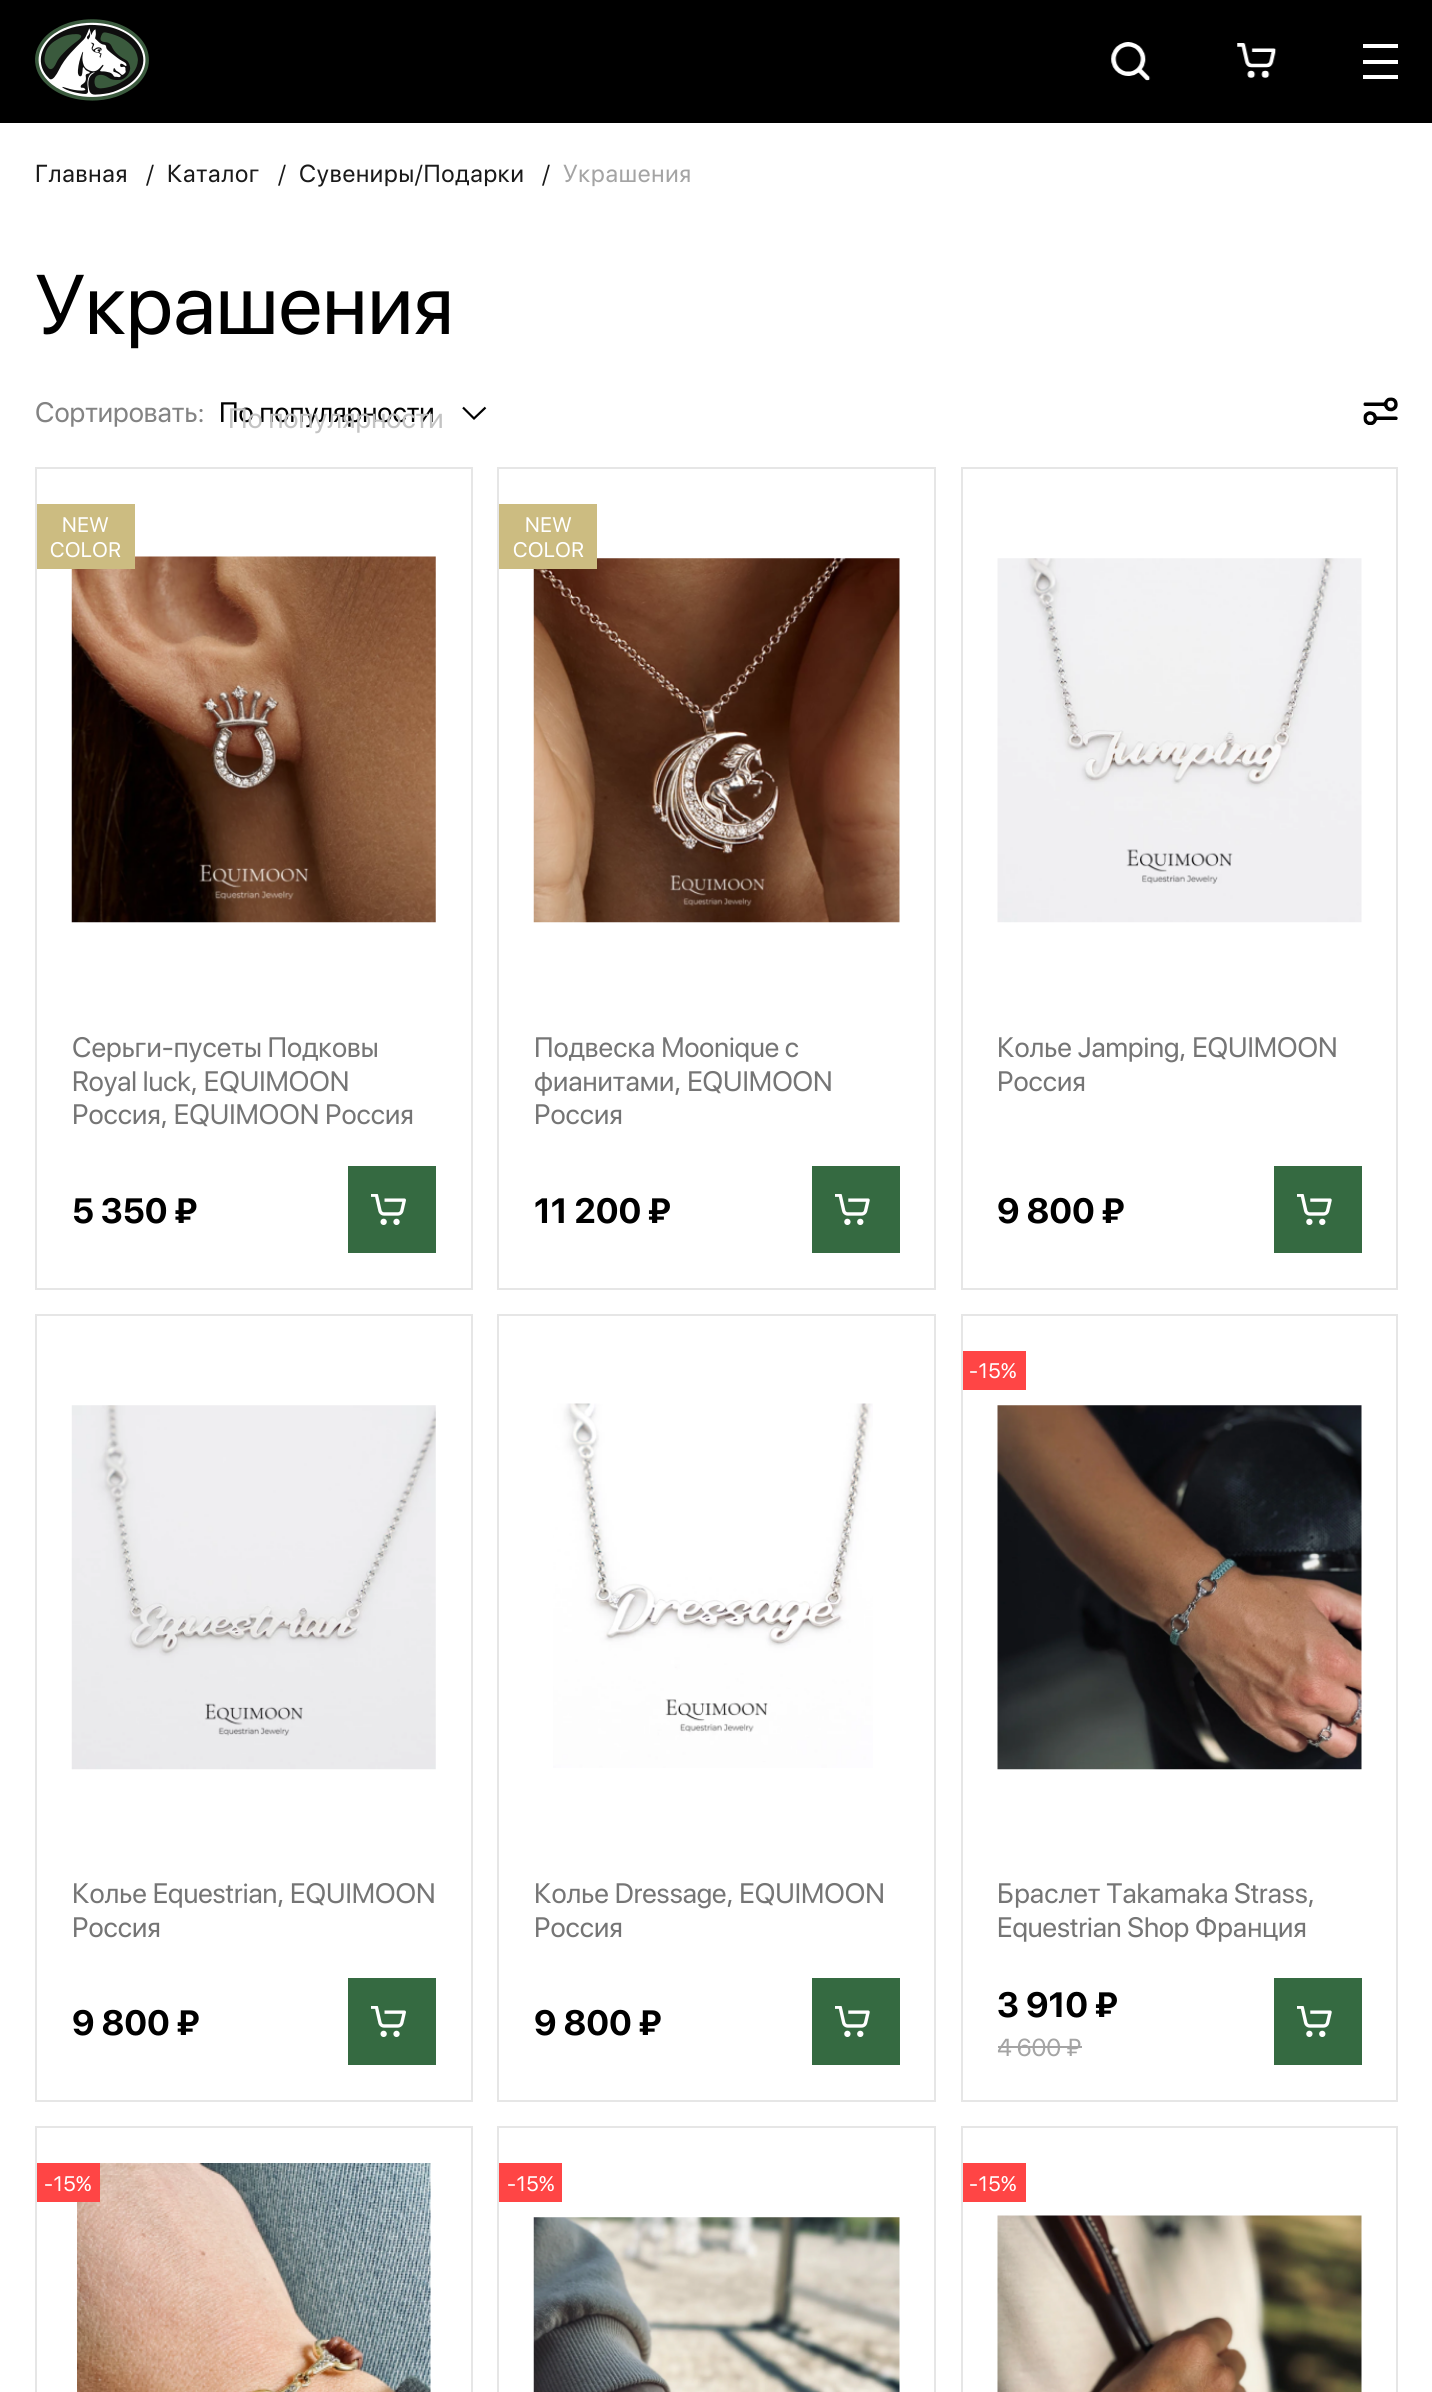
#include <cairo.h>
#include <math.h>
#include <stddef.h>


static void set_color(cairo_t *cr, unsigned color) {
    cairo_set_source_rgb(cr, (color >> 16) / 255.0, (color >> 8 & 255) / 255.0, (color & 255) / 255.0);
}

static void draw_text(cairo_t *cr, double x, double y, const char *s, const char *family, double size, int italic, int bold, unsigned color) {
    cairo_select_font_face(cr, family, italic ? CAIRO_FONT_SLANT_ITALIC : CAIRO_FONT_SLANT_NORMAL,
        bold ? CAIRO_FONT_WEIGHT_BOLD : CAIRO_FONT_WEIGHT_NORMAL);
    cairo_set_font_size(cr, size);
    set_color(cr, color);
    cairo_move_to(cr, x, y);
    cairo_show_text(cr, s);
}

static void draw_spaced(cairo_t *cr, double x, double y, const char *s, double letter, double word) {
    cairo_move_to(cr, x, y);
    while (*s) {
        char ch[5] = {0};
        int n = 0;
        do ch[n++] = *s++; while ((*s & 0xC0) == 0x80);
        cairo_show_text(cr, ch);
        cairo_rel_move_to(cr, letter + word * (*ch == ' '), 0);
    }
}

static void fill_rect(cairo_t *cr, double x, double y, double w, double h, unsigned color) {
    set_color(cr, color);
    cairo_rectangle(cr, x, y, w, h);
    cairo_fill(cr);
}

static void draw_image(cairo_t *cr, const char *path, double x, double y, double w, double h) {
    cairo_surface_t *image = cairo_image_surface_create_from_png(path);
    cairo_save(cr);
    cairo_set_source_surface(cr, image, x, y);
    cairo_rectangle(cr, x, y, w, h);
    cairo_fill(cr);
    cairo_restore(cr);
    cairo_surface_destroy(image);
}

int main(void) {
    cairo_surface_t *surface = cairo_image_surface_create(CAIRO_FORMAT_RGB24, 1432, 2392);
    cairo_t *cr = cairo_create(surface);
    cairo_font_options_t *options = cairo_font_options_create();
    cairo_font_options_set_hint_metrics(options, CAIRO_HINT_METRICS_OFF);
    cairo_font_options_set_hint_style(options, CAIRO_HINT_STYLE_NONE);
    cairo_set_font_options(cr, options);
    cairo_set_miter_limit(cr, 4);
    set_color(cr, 0xFFFFFF);
    cairo_paint(cr);
    fill_rect(cr, 0, 0, 1432, 123, 0x000000);
    draw_image(cr, "assets/img1.png", 35, 19, 114, 82);
    draw_image(cr, "assets/img2.png", 1111, 42, 40, 39);
    draw_image(cr, "assets/img3.png", 1237, 43, 40, 35);
    fill_rect(cr, 1363, 44, 35, 4, 0xFFFFFF);
    fill_rect(cr, 1363, 60, 35, 4, 0xFFFFFF);
    fill_rect(cr, 1363, 75, 35, 4, 0xFFFFFF);
    cairo_select_font_face(cr, "SF Pro Display", CAIRO_FONT_SLANT_NORMAL, CAIRO_FONT_WEIGHT_NORMAL);
    cairo_set_font_size(cr, 24.5);
    set_color(cr, 0x1A1A1A);
    draw_spaced(cr, 35, 182, "Главная", 0.75, 0);
    draw_spaced(cr, 146, 182, "/", 0.75, 0);
    draw_spaced(cr, 167, 182, "Каталог", 0.75, 0);
    draw_spaced(cr, 278, 182, "/", 0.75, 0);
    draw_spaced(cr, 299, 182, "Сувениры/Подарки", 0.75, 0);
    draw_spaced(cr, 542, 182, "/", 0.75, 0);
    set_color(cr, 0xA4A4A4);
    draw_spaced(cr, 563, 182, "Украшения", 0.75, 0);
    draw_text(cr, 35, 334, "Украшения", "SF Pro Display", 84, 0, 0, 0x000000);
    draw_text(cr, 35, 422, "Сортировать:", "SF Pro Display", 28, 0, 0, 0x838383);
    draw_text(cr, 219, 422, "По популярности", "SF Pro Display", 28, 0, 0, 0x000000);
    cairo_new_path(cr);
    cairo_move_to(cr, 463, 407.5);
    cairo_line_to(cr, 474, 418.5);
    cairo_line_to(cr, 485.5, 407.5);
    cairo_set_line_width(cr, 2.2);
    cairo_stroke(cr);
    draw_text(cr, 228, 428, "По популярности", "SF Pro Display", 28, 0, 0, 0xC3C3C3);
    draw_image(cr, "assets/img4.png", 1363, 397, 35, 28);
    cairo_rectangle(cr, 36, 468, 436, 821);
    set_color(cr, 0xE6E6E6);
    cairo_set_line_width(cr, 2);
    cairo_stroke(cr);
    draw_image(cr, "assets/img5.png", 71, 556, 365, 367);
    fill_rect(cr, 37, 504, 98, 65, 0xCCBC81);
    cairo_set_font_size(cr, 21);
    set_color(cr, 0xFFFFFF);
    draw_spaced(cr, 62, 532, "NEW", 0.5, 0);
    draw_spaced(cr, 50, 557, "COLOR", 0.5, 0);
    draw_text(cr, 72, 1057, "Серьги-пусеты Подковы", "SF Pro Display", 28, 0, 0, 0x757575);
    draw_text(cr, 72, 1091, "Royal luck, EQUIMOON", "SF Pro Display", 28, 0, 0, 0x757575);
    draw_text(cr, 72, 1124, "Россия, EQUIMOON Россия", "SF Pro Display", 28, 0, 0, 0x757575);
    draw_text(cr, 72, 1223, "5 350 ₽", "SF Pro Display", 35, 0, 1, 0x000000);
    fill_rect(cr, 348, 1166, 88, 87, 0x356A41);
    draw_image(cr, "assets/img6.png", 371, 1194, 35, 31);
    cairo_rectangle(cr, 498, 468, 437, 821);
    set_color(cr, 0xE6E6E6);
    cairo_stroke(cr);
    draw_image(cr, "assets/img7.png", 533, 558, 367, 365);
    fill_rect(cr, 499, 504, 98, 65, 0xCCBC81);
    cairo_select_font_face(cr, "SF Pro Display", CAIRO_FONT_SLANT_NORMAL, CAIRO_FONT_WEIGHT_NORMAL);
    cairo_set_font_size(cr, 21);
    set_color(cr, 0xFFFFFF);
    draw_spaced(cr, 525, 532, "NEW", 0.5, 0);
    draw_spaced(cr, 513, 557, "COLOR", 0.5, 0);
    draw_text(cr, 534, 1057, "Подвеска Moonique с", "SF Pro Display", 28, 0, 0, 0x757575);
    draw_text(cr, 534, 1091, "фианитами, EQUIMOON", "SF Pro Display", 28, 0, 0, 0x757575);
    draw_text(cr, 534, 1124, "Россия", "SF Pro Display", 28, 0, 0, 0x757575);
    draw_text(cr, 534, 1223, "11 200 ₽", "SF Pro Display", 35, 0, 1, 0x000000);
    fill_rect(cr, 812, 1166, 88, 87, 0x356A41);
    draw_image(cr, "assets/img8.png", 835, 1194, 35, 31);
    cairo_rectangle(cr, 962, 468, 435, 821);
    set_color(cr, 0xE6E6E6);
    cairo_stroke(cr);
    draw_image(cr, "assets/img9.png", 997, 558, 365, 365);
    draw_text(cr, 997, 1057, "Колье Jamping, EQUIMOON", "SF Pro Display", 28, 0, 0, 0x757575);
    draw_text(cr, 997, 1091, "Россия", "SF Pro Display", 28, 0, 0, 0x757575);
    draw_text(cr, 997, 1223, "9 800 ₽", "SF Pro Display", 35, 0, 1, 0x000000);
    fill_rect(cr, 1274, 1166, 88, 87, 0x356A41);
    draw_image(cr, "assets/img8.png", 1297, 1194, 35, 31);
    cairo_rectangle(cr, 36, 1315, 436, 786);
    set_color(cr, 0xE6E6E6);
    cairo_stroke(cr);
    draw_image(cr, "assets/img10.png", 71, 1405, 365, 365);
    draw_text(cr, 72, 1903, "Колье Equestrian, EQUIMOON", "SF Pro Display", 28, 0, 0, 0x757575);
    draw_text(cr, 72, 1937, "Россия", "SF Pro Display", 28, 0, 0, 0x757575);
    draw_text(cr, 72, 2035, "9 800 ₽", "SF Pro Display", 35, 0, 1, 0x000000);
    fill_rect(cr, 348, 1978, 88, 87, 0x356A41);
    draw_image(cr, "assets/img6.png", 371, 2006, 35, 31);
    cairo_rectangle(cr, 498, 1315, 437, 786);
    set_color(cr, 0xE6E6E6);
    cairo_stroke(cr);
    draw_image(cr, "assets/img11.png", 553, 1403, 320, 365);
    draw_text(cr, 534, 1903, "Колье Dressage, EQUIMOON", "SF Pro Display", 28, 0, 0, 0x757575);
    draw_text(cr, 534, 1937, "Россия", "SF Pro Display", 28, 0, 0, 0x757575);
    draw_text(cr, 534, 2035, "9 800 ₽", "SF Pro Display", 35, 0, 1, 0x000000);
    fill_rect(cr, 812, 1978, 88, 87, 0x356A41);
    draw_image(cr, "assets/img8.png", 835, 2006, 35, 31);
    cairo_rectangle(cr, 962, 1315, 435, 786);
    set_color(cr, 0xE6E6E6);
    cairo_stroke(cr);
    fill_rect(cr, 963, 1351, 63, 39, 0xFF4545);
    cairo_select_font_face(cr, "SF Pro Display", CAIRO_FONT_SLANT_NORMAL, CAIRO_FONT_WEIGHT_NORMAL);
    cairo_set_font_size(cr, 21);
    set_color(cr, 0xFFFFFF);
    draw_spaced(cr, 969, 1378, "-15%", 0.5, 0);
    draw_image(cr, "assets/img12.png", 997, 1405, 365, 365);
    draw_text(cr, 997, 1903, "Браслет Takamaka Strass,", "SF Pro Display", 28, 0, 0, 0x757575);
    draw_text(cr, 997, 1937, "Equestrian Shop Франция", "SF Pro Display", 28, 0, 0, 0x757575);
    draw_text(cr, 997, 2017, "3 910 ₽", "SF Pro Display", 35, 0, 1, 0x000000);
    draw_text(cr, 997, 2056, "4 600 ₽", "SF Pro Display", 24.5, 0, 0, 0xA4A4A4);
    fill_rect(cr, 998, 2046, 84, 2, 0xA4A4A4);
    fill_rect(cr, 1274, 1978, 88, 87, 0x356A41);
    draw_image(cr, "assets/img8.png", 1297, 2006, 35, 31);
    cairo_rectangle(cr, 36, 2127, 436, 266);
    set_color(cr, 0xE6E6E6);
    cairo_stroke(cr);
    draw_image(cr, "assets/img13.png", 77, 2163, 354, 229);
    fill_rect(cr, 37, 2163, 63, 39, 0xFF4545);
    cairo_set_font_size(cr, 21);
    set_color(cr, 0xFFFFFF);
    draw_spaced(cr, 44, 2191, "-15%", 0.5, 0);
    cairo_rectangle(cr, 498, 2127, 437, 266);
    set_color(cr, 0xE6E6E6);
    cairo_stroke(cr);
    fill_rect(cr, 499, 2163, 63, 39, 0xFF4545);
    set_color(cr, 0xFFFFFF);
    draw_spaced(cr, 507, 2191, "-15%", 0.5, 0);
    draw_image(cr, "assets/img14.png", 533, 2217, 367, 175);
    cairo_rectangle(cr, 962, 2127, 435, 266);
    set_color(cr, 0xE6E6E6);
    cairo_stroke(cr);
    fill_rect(cr, 963, 2163, 63, 39, 0xFF4545);
    set_color(cr, 0xFFFFFF);
    draw_spaced(cr, 969, 2191, "-15%", 0.5, 0);
    draw_image(cr, "assets/img15.png", 997, 2215, 365, 177);
    cairo_surface_write_to_png(surface, "output.png");
    cairo_font_options_destroy(options);
    cairo_destroy(cr);
    cairo_surface_destroy(surface);
    return 0;
}
